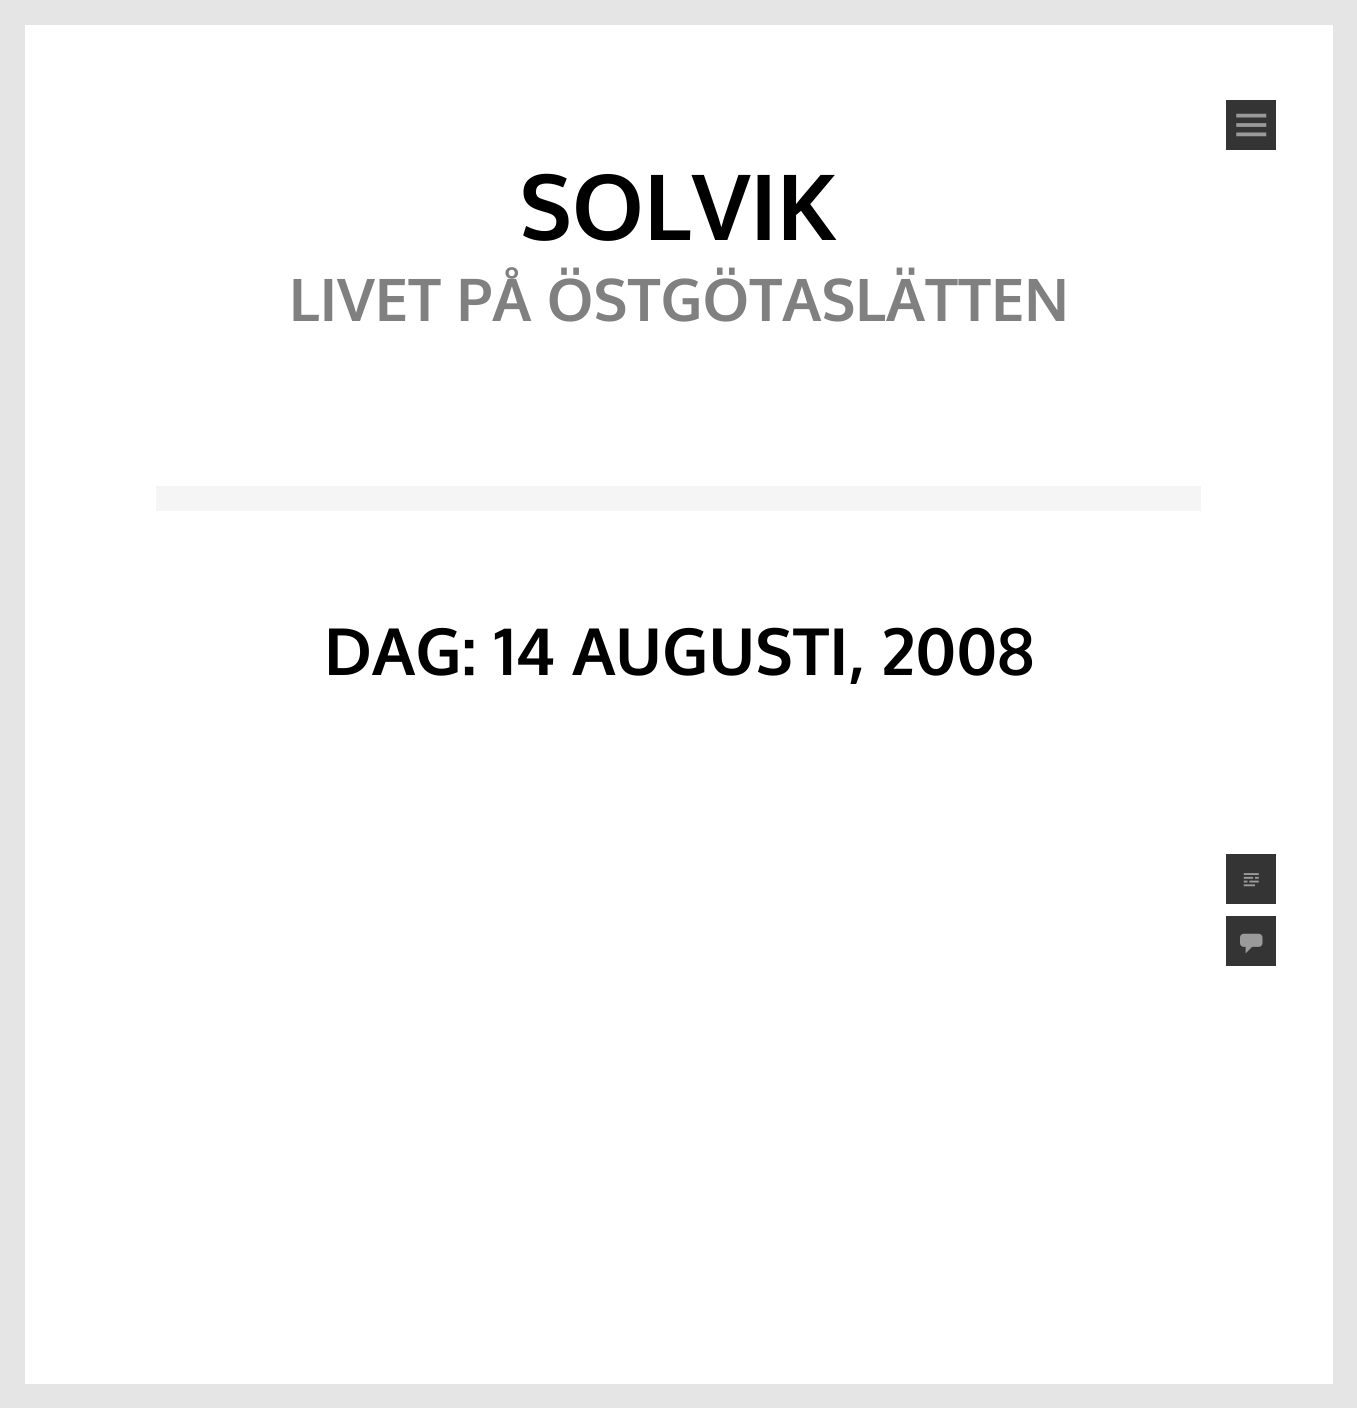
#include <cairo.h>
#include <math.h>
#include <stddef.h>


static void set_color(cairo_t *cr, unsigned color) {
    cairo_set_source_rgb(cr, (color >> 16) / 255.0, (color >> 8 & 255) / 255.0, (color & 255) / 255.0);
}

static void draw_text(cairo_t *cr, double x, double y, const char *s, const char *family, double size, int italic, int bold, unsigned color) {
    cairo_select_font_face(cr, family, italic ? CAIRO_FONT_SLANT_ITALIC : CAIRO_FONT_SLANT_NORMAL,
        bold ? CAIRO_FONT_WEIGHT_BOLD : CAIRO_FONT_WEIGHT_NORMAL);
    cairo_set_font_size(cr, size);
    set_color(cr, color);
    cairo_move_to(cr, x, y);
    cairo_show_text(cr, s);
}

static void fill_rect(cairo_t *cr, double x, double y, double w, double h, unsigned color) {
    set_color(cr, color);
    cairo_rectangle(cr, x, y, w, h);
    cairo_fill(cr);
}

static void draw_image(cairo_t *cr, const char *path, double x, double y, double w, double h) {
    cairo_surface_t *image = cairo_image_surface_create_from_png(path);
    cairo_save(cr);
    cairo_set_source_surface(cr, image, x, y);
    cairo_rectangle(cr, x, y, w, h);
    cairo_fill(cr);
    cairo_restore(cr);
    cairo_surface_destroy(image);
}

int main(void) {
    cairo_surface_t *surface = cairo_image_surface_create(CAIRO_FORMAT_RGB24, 1357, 1408);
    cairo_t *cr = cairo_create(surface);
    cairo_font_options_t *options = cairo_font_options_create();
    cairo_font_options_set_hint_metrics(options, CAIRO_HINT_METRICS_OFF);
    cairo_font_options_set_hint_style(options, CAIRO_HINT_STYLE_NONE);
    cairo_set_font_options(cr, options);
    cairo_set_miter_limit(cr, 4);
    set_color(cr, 0xFFFFFF);
    cairo_paint(cr);
    fill_rect(cr, 1333, 25, 24, 1359, 0xE5E5E5);
    fill_rect(cr, 0, 25, 25, 1359, 0xE5E5E5);
    fill_rect(cr, 0, 0, 1357, 25, 0xE5E5E5);
    fill_rect(cr, 156, 486, 1045, 25, 0xF5F5F5);
    fill_rect(cr, 1226, 100, 50, 50, 0x343434);
    draw_image(cr, "assets/img1.png", 1236, 113, 31, 24);
    draw_text(cr, 519, 240, "SOLVIK", "Oxygen", 91, 0, 1, 0x000000);
    draw_text(cr, 289, 321, "LIVET PÅ ÖSTGÖTASLÄTTEN", "Oxygen", 58.75, 0, 1, 0x808080);
    draw_text(cr, 324, 675, "DAG: 14 AUGUSTI, 2008", "Oxygen", 65, 0, 1, 0x000000);
    fill_rect(cr, 1226, 854, 50, 50, 0x343434);
    draw_image(cr, "assets/img2.png", 1243, 873, 16, 14);
    fill_rect(cr, 1226, 916, 50, 50, 0x343434);
    draw_image(cr, "assets/img3.png", 1240, 933, 23, 21);
    fill_rect(cr, 0, 1384, 1357, 24, 0xE5E5E5);
    cairo_surface_write_to_png(surface, "output.png");
    cairo_font_options_destroy(options);
    cairo_destroy(cr);
    cairo_surface_destroy(surface);
    return 0;
}
